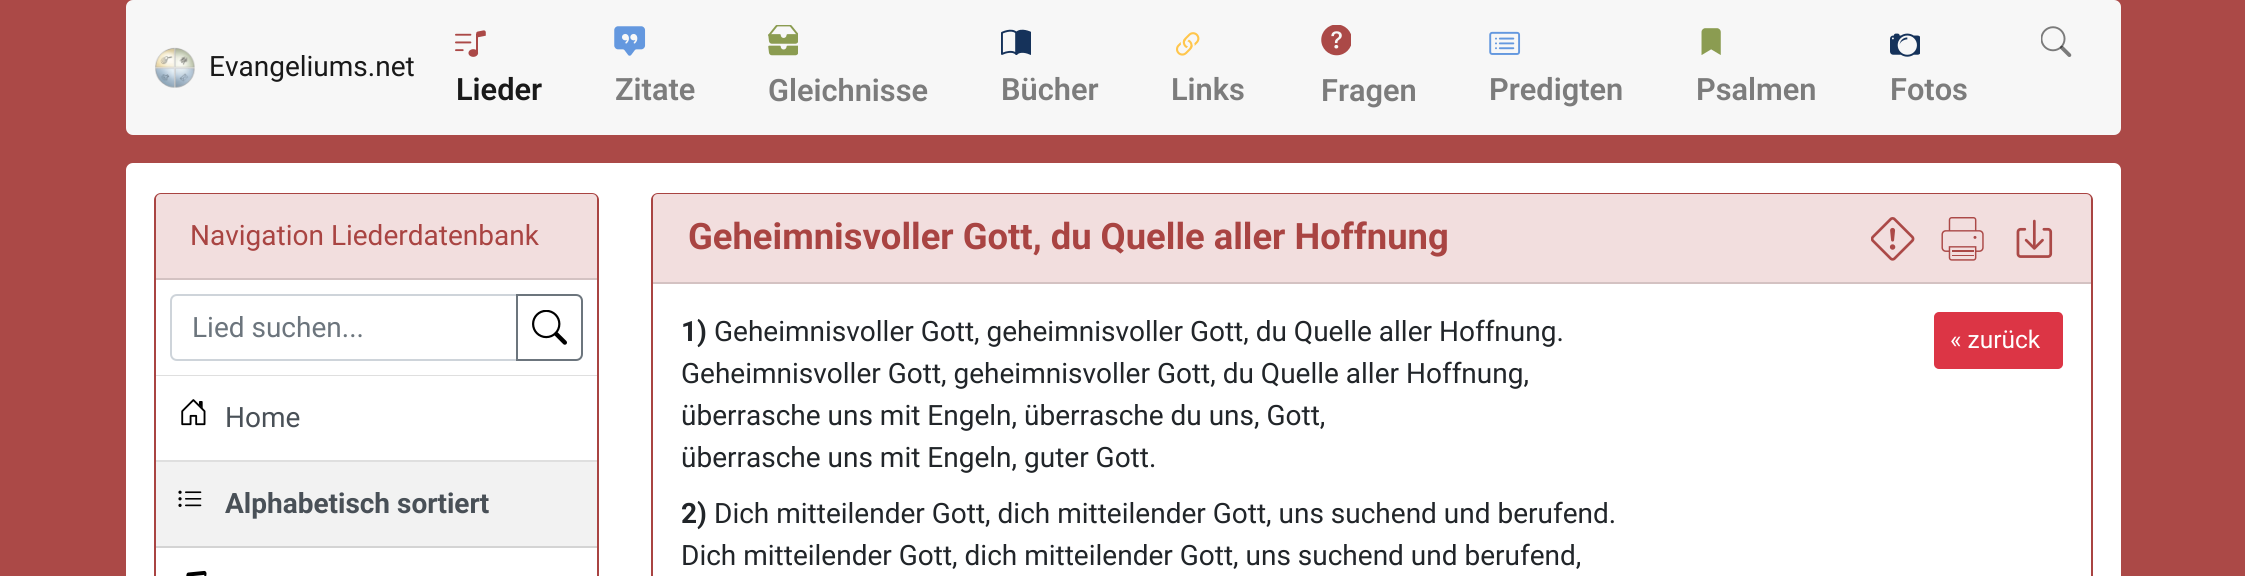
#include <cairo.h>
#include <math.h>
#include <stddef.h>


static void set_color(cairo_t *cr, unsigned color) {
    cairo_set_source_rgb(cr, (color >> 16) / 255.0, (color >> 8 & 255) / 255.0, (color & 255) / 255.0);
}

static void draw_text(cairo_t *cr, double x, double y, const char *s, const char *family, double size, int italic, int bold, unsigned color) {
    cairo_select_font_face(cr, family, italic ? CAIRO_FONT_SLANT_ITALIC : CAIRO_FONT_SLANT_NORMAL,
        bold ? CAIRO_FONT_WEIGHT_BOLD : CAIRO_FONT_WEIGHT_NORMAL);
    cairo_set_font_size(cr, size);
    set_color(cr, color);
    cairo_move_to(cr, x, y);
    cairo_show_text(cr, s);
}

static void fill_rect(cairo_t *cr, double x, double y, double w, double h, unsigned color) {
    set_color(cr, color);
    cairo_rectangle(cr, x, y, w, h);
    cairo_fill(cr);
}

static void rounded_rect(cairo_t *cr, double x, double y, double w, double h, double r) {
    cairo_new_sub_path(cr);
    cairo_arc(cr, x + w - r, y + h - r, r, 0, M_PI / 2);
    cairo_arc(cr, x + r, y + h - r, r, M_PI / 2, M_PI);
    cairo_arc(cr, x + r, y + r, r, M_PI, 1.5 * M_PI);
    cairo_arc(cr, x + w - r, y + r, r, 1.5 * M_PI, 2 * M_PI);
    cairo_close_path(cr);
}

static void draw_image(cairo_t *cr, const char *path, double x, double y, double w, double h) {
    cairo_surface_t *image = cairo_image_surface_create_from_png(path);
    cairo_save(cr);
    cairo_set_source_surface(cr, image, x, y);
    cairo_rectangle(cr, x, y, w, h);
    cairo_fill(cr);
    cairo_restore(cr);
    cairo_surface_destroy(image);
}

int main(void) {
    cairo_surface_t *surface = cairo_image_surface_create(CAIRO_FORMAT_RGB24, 2245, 576);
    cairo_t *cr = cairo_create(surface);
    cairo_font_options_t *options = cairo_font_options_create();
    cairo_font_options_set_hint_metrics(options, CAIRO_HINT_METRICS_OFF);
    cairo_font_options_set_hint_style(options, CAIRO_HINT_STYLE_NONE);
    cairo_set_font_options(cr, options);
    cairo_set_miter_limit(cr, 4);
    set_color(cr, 0xAB4947);
    cairo_paint(cr);
    set_color(cr, 0xF7F7F7);
    rounded_rect(cr, 126, 0, 1995, 135, 7);
    cairo_fill(cr);
    draw_image(cr, "assets/img1.png", 155, 47, 40, 41);
    draw_text(cr, 209, 76, "Evangeliums.net", "Roboto", 28, 0, 0, 0x191919);
    draw_image(cr, "assets/img2.png", 2041, 26, 31, 31);
    draw_image(cr, "assets/img3.png", 455, 30, 31, 27);
    draw_text(cr, 456, 100, "Lieder", "Roboto SemiBold", 30.75, 0, 0, 0x191919);
    draw_image(cr, "assets/img4.png", 614, 26, 32, 30);
    draw_text(cr, 615, 100, "Zitate", "Roboto SemiBold", 30.75, 0, 0, 0x7C7C7C);
    draw_image(cr, "assets/img5.png", 768, 25, 30, 31);
    draw_text(cr, 768, 101, "Gleichnisse", "Roboto SemiBold", 30.75, 0, 0, 0x7C7C7C);
    draw_image(cr, "assets/img6.png", 1001, 29, 30, 26);
    draw_text(cr, 1001, 100, "Bücher", "Roboto SemiBold", 30.75, 0, 0, 0x7C7C7C);
    draw_image(cr, "assets/img7.png", 1176, 32, 24, 24);
    draw_text(cr, 1171, 100, "Links", "Roboto SemiBold", 30.75, 0, 0, 0x7C7C7C);
    draw_image(cr, "assets/img8.png", 1321, 25, 30, 31);
    draw_text(cr, 1321, 101, "Fragen", "Roboto SemiBold", 30.75, 0, 0, 0x7C7C7C);
    draw_image(cr, "assets/img9.png", 1489, 31, 32, 24);
    draw_text(cr, 1489, 100, "Predigten", "Roboto SemiBold", 30.75, 0, 0, 0x7C7C7C);
    draw_image(cr, "assets/img10.png", 1701, 28, 20, 27);
    draw_text(cr, 1696, 100, "Psalmen", "Roboto SemiBold", 30.75, 0, 0, 0x7C7C7C);
    draw_image(cr, "assets/img11.png", 1890, 33, 30, 24);
    draw_text(cr, 1890, 100, "Fotos", "Roboto SemiBold", 30.75, 0, 0, 0x7C7C7C);
    set_color(cr, 0xFFFFFF);
    rounded_rect(cr, 126, 163, 1995, 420, 7);
    cairo_fill(cr);
    rounded_rect(cr, 155, 194, 443, 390, 6);
    set_color(cr, 0xA94442);
    cairo_stroke(cr);
    set_color(cr, 0xF2DEDE);
    cairo_new_path(cr);
    cairo_move_to(cr, 161, 194);
    cairo_line_to(cr, 592, 194);
    cairo_curve_to(cr, 595, 194, 597, 196, 597, 199);
    cairo_line_to(cr, 597, 280);
    cairo_line_to(cr, 156, 280);
    cairo_line_to(cr, 156, 199);
    cairo_curve_to(cr, 156, 196, 158, 194, 161, 194);
    cairo_close_path(cr);
    cairo_fill(cr);
    fill_rect(cr, 156, 278, 441, 2, 0xD4C2C2);
    draw_text(cr, 190, 245, "Navigation Liederdatenbank", "Roboto", 28, 0, 0, 0xA94442);
    fill_rect(cr, 156, 375, 441, 1, 0xDFDFDF);
    cairo_new_path(cr);
    cairo_move_to(cr, 177, 295);
    cairo_line_to(cr, 517, 295);
    cairo_line_to(cr, 517, 360);
    cairo_line_to(cr, 177, 360);
    cairo_curve_to(cr, 173.5, 360, 171, 357.5, 171, 354);
    cairo_line_to(cr, 171, 301);
    cairo_curve_to(cr, 171, 297.5, 173.5, 295, 177, 295);
    cairo_close_path(cr);
    set_color(cr, 0xCED4DA);
    cairo_stroke(cr);
    draw_text(cr, 192, 337, "Lied suchen...", "Roboto", 28, 0, 0, 0x6C757D);
    cairo_new_path(cr);
    cairo_move_to(cr, 517, 295);
    cairo_line_to(cr, 576, 295);
    cairo_curve_to(cr, 579.5, 295, 582, 297.5, 582, 301);
    cairo_line_to(cr, 582, 354);
    cairo_curve_to(cr, 582, 357.5, 579.5, 360, 576, 360);
    cairo_line_to(cr, 517, 360);
    cairo_close_path(cr);
    cairo_stroke(cr);
    draw_image(cr, "assets/img12.png", 532, 310, 35, 35);
    fill_rect(cr, 156, 460, 441, 2, 0xDFDFDF);
    draw_image(cr, "assets/img13.png", 181, 399, 25, 27);
    draw_text(cr, 225, 427, "Home", "Roboto", 28, 0, 0, 0x495057);
    fill_rect(cr, 156, 462, 441, 84, 0xF2F2F2);
    fill_rect(cr, 156, 546, 441, 2, 0xD4D4D4);
    draw_image(cr, "assets/img14.png", 178, 490, 24, 17);
    draw_text(cr, 225, 513, "Alphabetisch sortiert", "Roboto", 28, 0, 1, 0x495057);
    draw_image(cr, "assets/img15.png", 186, 570, 21, 6);
    rounded_rect(cr, 652, 194, 1440, 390, 6);
    set_color(cr, 0xA94442);
    cairo_stroke(cr);
    set_color(cr, 0xF2DEDE);
    cairo_new_path(cr);
    cairo_move_to(cr, 658, 194);
    cairo_line_to(cr, 2086, 194);
    cairo_curve_to(cr, 2089, 194, 2091, 196, 2091, 199);
    cairo_line_to(cr, 2091, 284);
    cairo_line_to(cr, 653, 284);
    cairo_line_to(cr, 653, 199);
    cairo_curve_to(cr, 653, 196, 655, 194, 658, 194);
    cairo_close_path(cr);
    cairo_fill(cr);
    fill_rect(cr, 653, 282, 1438, 2, 0xD4C2C2);
    draw_text(cr, 688, 249, "Geheimnisvoller Gott, du Quelle aller Hoffnung", "Roboto", 36.4, 0, 1, 0xA94442);
    draw_image(cr, "assets/img16.png", 1871, 217, 44, 44);
    draw_image(cr, "assets/img17.png", 1941, 217, 43, 44);
    draw_image(cr, "assets/img18.png", 2016, 219, 37, 39);
    draw_text(cr, 681, 341, "1)", "Roboto", 28, 0, 1, 0x212529);
    draw_text(cr, 714, 341, "Geheimnisvoller Gott, geheimnisvoller Gott, du Quelle aller Hoffnung.", "Roboto", 28, 0, 0, 0x212529);
    draw_text(cr, 681, 383, "Geheimnisvoller Gott, geheimnisvoller Gott, du Quelle aller Hoffnung,", "Roboto", 28, 0, 0, 0x212529);
    draw_text(cr, 681, 425, "überrasche uns mit Engeln, überrasche du uns, Gott,", "Roboto", 28, 0, 0, 0x212529);
    draw_text(cr, 681, 467, "überrasche uns mit Engeln, guter Gott.", "Roboto", 28, 0, 0, 0x212529);
    set_color(cr, 0xDC3545);
    rounded_rect(cr, 1935, 313, 127, 55, 4);
    cairo_fill_preserve(cr);
    cairo_stroke(cr);
    draw_text(cr, 1950, 348, "« zurück", "Roboto", 24.5, 0, 0, 0xFFFFFF);
    draw_text(cr, 681, 523, "2)", "Roboto", 28, 0, 1, 0x212529);
    draw_text(cr, 714, 523, "Dich mitteilender Gott, dich mitteilender Gott, uns suchend und berufend.", "Roboto", 28, 0, 0, 0x212529);
    draw_text(cr, 681, 565, "Dich mitteilender Gott, dich mitteilender Gott, uns suchend und berufend,", "Roboto", 28, 0, 0, 0x212529);
    cairo_surface_write_to_png(surface, "output.png");
    cairo_font_options_destroy(options);
    cairo_destroy(cr);
    cairo_surface_destroy(surface);
    return 0;
}
